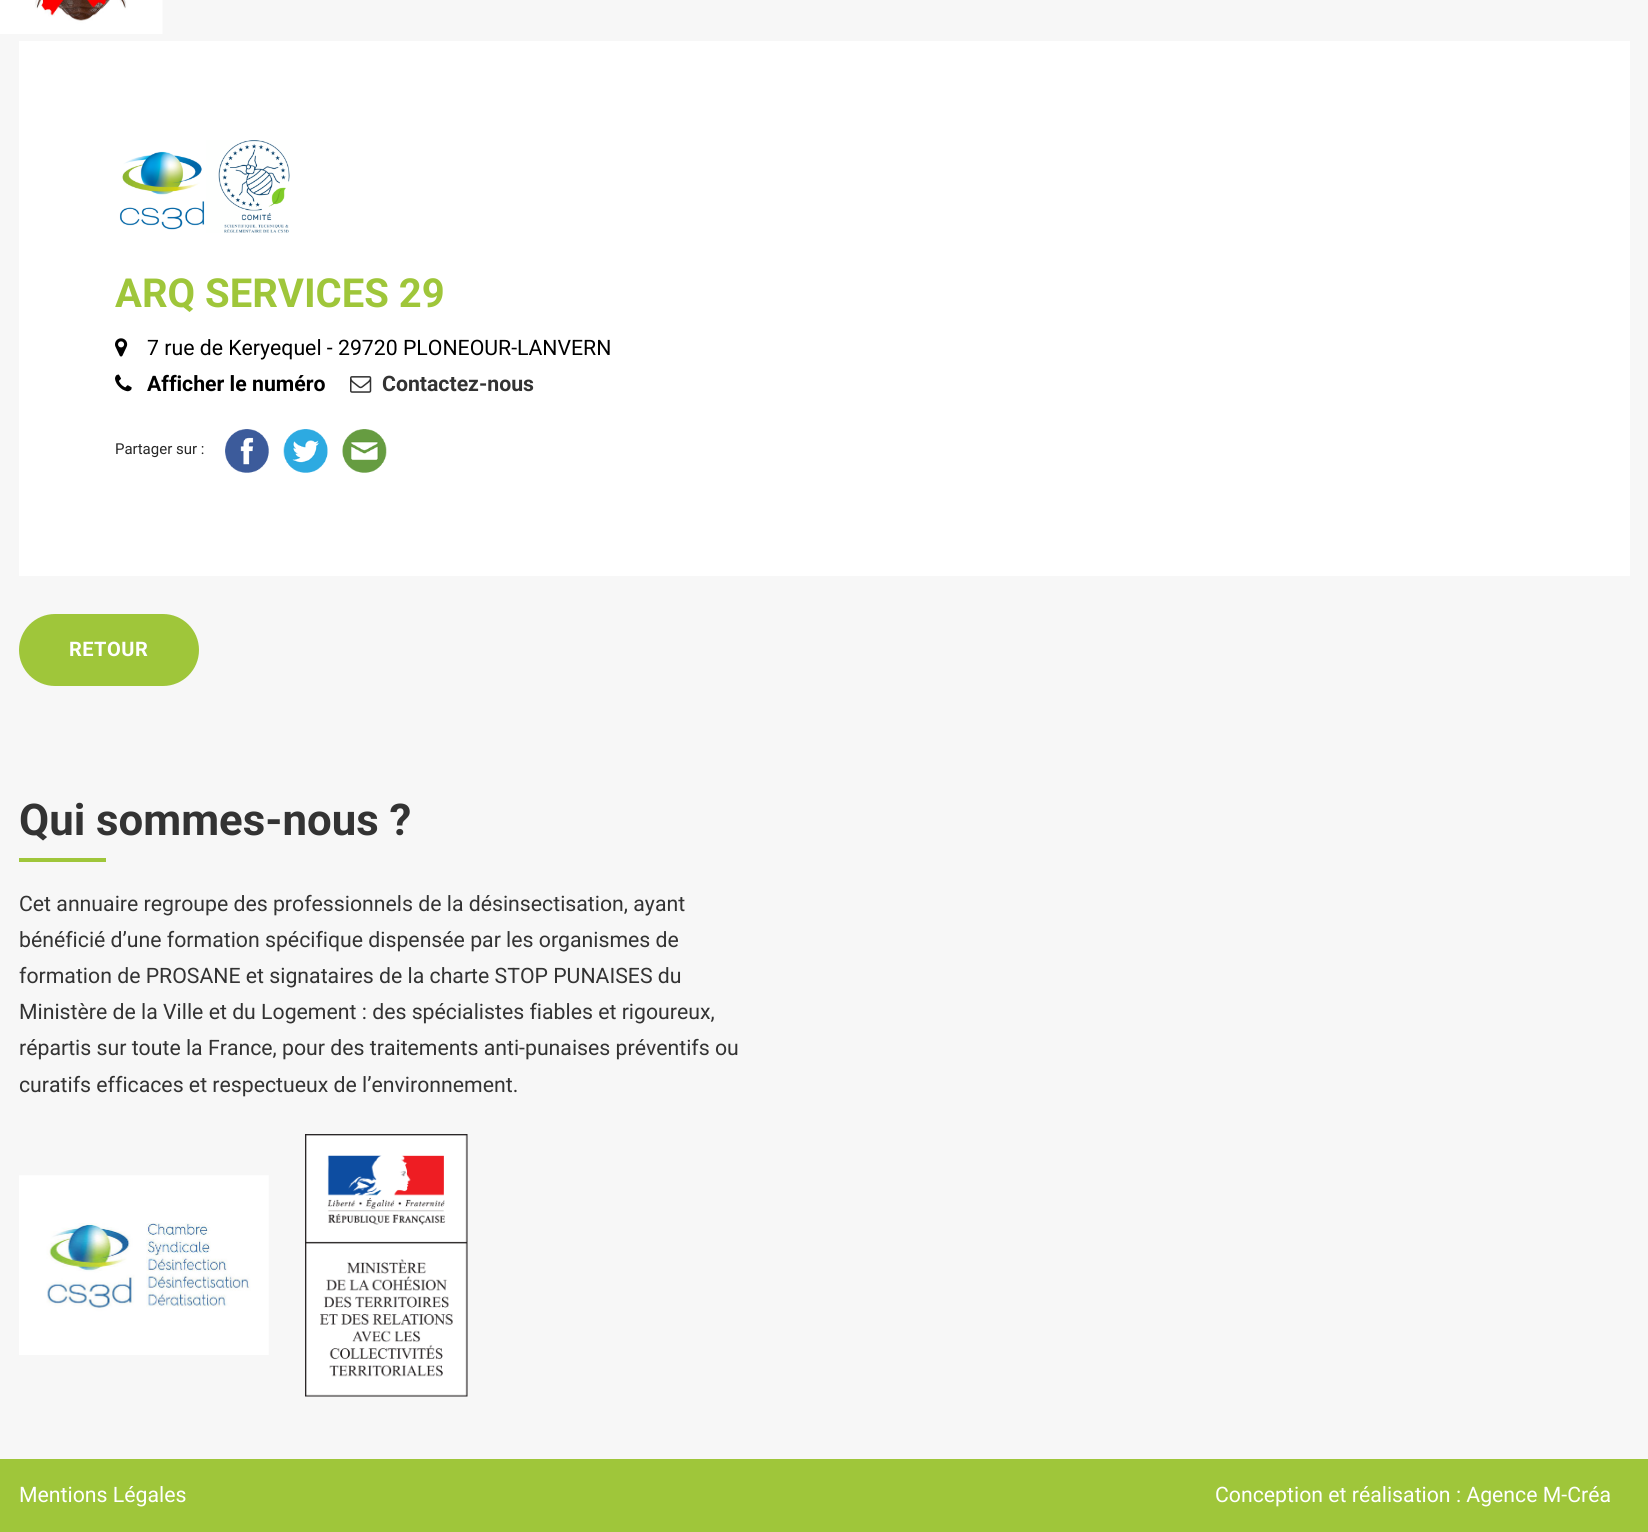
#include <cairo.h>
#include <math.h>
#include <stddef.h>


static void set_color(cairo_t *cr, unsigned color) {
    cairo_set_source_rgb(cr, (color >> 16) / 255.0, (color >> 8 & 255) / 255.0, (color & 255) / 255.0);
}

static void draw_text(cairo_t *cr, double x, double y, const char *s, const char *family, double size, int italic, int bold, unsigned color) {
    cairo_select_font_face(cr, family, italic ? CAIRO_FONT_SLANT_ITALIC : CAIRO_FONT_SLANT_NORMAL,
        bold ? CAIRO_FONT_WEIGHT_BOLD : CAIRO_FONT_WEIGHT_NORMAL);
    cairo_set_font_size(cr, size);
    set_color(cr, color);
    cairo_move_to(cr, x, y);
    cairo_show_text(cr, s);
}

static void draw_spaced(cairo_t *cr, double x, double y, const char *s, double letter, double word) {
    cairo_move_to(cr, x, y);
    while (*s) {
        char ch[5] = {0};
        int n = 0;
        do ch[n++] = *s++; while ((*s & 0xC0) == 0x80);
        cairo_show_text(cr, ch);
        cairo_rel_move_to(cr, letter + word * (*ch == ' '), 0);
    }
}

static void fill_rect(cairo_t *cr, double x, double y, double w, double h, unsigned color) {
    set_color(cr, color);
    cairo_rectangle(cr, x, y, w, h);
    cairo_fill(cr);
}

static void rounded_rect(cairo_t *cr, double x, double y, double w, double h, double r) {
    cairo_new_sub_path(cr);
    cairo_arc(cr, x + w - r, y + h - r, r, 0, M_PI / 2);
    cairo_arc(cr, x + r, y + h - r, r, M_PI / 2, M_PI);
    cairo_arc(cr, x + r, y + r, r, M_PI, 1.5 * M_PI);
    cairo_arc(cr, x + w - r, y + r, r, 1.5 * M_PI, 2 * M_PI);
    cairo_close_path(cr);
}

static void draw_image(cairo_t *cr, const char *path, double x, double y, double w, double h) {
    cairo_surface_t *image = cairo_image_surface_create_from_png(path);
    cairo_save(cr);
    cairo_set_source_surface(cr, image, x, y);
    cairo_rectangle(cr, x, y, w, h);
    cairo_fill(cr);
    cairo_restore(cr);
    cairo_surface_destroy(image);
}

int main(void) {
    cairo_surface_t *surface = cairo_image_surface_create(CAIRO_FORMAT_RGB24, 1648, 1532);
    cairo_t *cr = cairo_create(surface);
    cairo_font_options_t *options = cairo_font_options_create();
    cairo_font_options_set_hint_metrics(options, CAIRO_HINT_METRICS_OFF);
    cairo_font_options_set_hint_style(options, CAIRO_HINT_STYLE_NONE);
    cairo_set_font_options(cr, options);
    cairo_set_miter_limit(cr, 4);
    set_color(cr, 0x9FC63A);
    cairo_paint(cr);
    fill_rect(cr, 0, 0, 1648, 1459, 0xF7F7F7);
    draw_image(cr, "assets/img1.png", 0, 0, 163, 34);
    fill_rect(cr, 19, 41, 1611, 535, 0xFFFFFF);
    draw_image(cr, "assets/img2.png", 119, 140, 171, 93);
    draw_text(cr, 115, 307, "ARQ SERVICES 29", "Roboto", 40, 0, 1, 0x9FC63A);
    draw_image(cr, "assets/img3.png", 115, 338, 13, 19);
    draw_text(cr, 147, 355, "7 rue de Keryequel - 29720 PLONEOUR-LANVERN", "Roboto", 21.25, 0, 0, 0x000000);
    draw_image(cr, "assets/img4.png", 115, 374, 17, 18);
    draw_text(cr, 147, 391, "Afficher le numéro", "Roboto", 21.25, 0, 1, 0x000000);
    draw_image(cr, "assets/img5.png", 350, 376, 22, 17);
    draw_text(cr, 382, 391, "Contactez-nous", "Roboto", 21.25, 0, 1, 0x333333);
    draw_text(cr, 115, 454, "Partager sur :", "Roboto", 15, 0, 0, 0x272727);
    draw_image(cr, "assets/img6.png", 225, 429, 44, 44);
    draw_image(cr, "assets/img7.png", 283, 429, 45, 44);
    draw_image(cr, "assets/img8.png", 342, 429, 45, 44);
    set_color(cr, 0x9FC63A);
    rounded_rect(cr, 19, 614, 180, 72, 36);
    cairo_fill(cr);
    cairo_select_font_face(cr, "Roboto", CAIRO_FONT_SLANT_NORMAL, CAIRO_FONT_WEIGHT_BOLD);
    cairo_set_font_size(cr, 20);
    set_color(cr, 0xFFFFFF);
    draw_spaced(cr, 69, 656, "RETOUR", 0.5, 0);
    draw_text(cr, 19, 835, "Qui sommes-nous ?", "Roboto", 43.75, 0, 1, 0x333333);
    fill_rect(cr, 19, 858, 87, 4, 0x9FC63A);
    draw_text(cr, 19, 911, "Cet annuaire regroupe des professionnels de la désinsectisation, ayant", "Roboto", 21.25, 0, 0, 0x333333);
    draw_text(cr, 19, 947, "bénéficié d’une formation spécifique dispensée par les organismes de", "Roboto", 21.25, 0, 0, 0x333333);
    draw_text(cr, 19, 983, "formation de PROSANE et signataires de la charte STOP PUNAISES du", "Roboto", 21.25, 0, 0, 0x333333);
    draw_text(cr, 19, 1019, "Ministère de la Ville et du Logement : des spécialistes fiables et rigoureux,", "Roboto", 21.25, 0, 0, 0x333333);
    draw_text(cr, 19, 1055, "répartis sur toute la France, pour des traitements anti-punaises préventifs ou", "Roboto", 21.25, 0, 0, 0x333333);
    draw_text(cr, 19, 1092, "curatifs efficaces et respectueux de l’environnement.", "Roboto", 21.25, 0, 0, 0x333333);
    draw_image(cr, "assets/img9.png", 19, 1175, 250, 180);
    draw_image(cr, "assets/img10.png", 305, 1134, 163, 263);
    draw_text(cr, 19, 1502, "Mentions Légales", "Roboto", 21.25, 0, 0, 0xFFFFFF);
    draw_text(cr, 1215, 1502, "Conception et réalisation : Agence M-Créa", "Roboto", 21.25, 0, 0, 0xFFFFFF);
    cairo_surface_write_to_png(surface, "output.png");
    cairo_font_options_destroy(options);
    cairo_destroy(cr);
    cairo_surface_destroy(surface);
    return 0;
}
